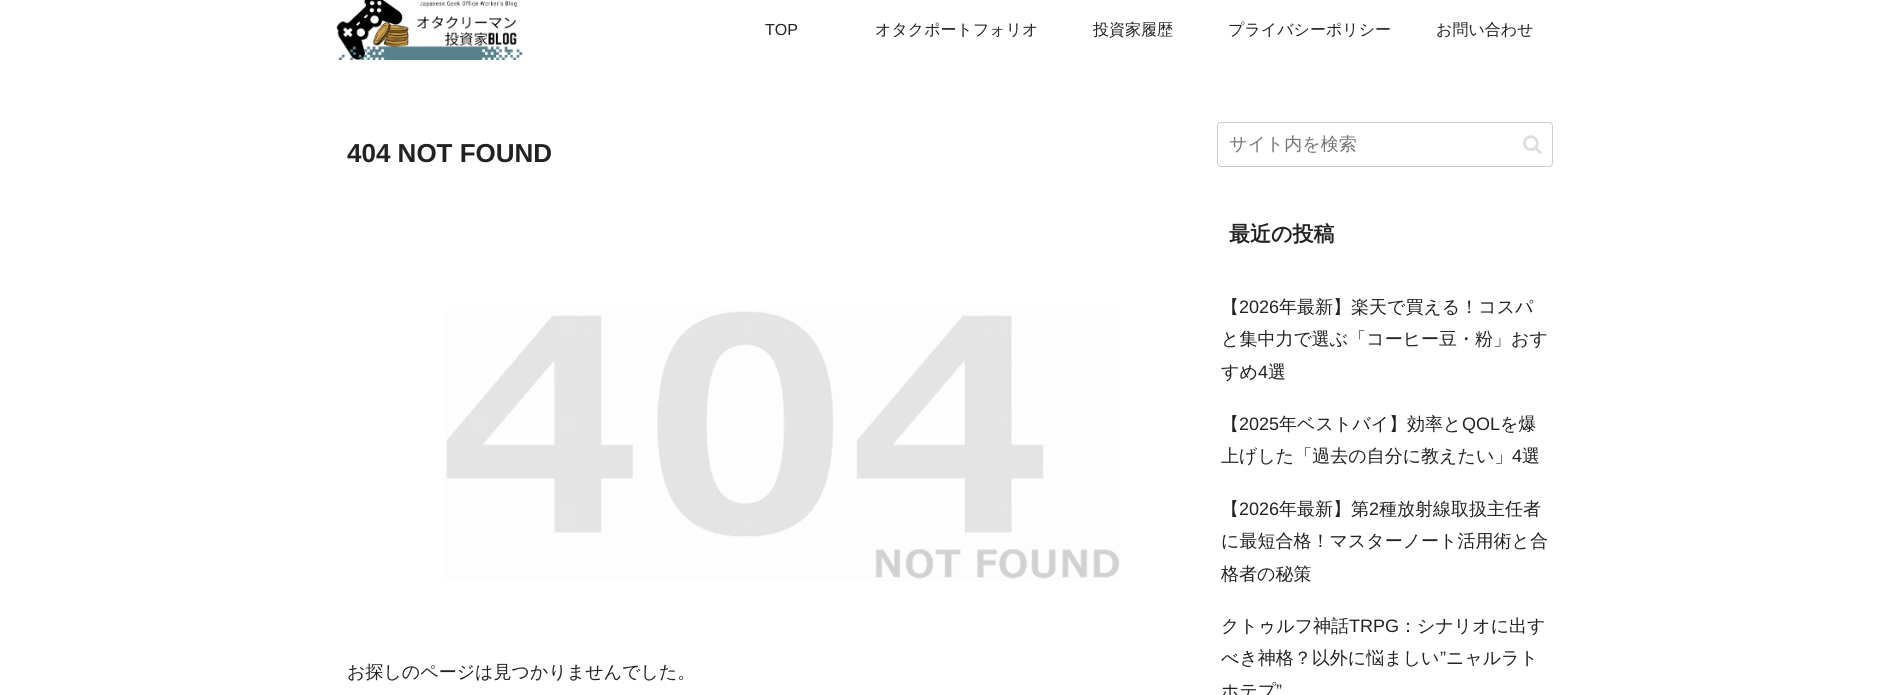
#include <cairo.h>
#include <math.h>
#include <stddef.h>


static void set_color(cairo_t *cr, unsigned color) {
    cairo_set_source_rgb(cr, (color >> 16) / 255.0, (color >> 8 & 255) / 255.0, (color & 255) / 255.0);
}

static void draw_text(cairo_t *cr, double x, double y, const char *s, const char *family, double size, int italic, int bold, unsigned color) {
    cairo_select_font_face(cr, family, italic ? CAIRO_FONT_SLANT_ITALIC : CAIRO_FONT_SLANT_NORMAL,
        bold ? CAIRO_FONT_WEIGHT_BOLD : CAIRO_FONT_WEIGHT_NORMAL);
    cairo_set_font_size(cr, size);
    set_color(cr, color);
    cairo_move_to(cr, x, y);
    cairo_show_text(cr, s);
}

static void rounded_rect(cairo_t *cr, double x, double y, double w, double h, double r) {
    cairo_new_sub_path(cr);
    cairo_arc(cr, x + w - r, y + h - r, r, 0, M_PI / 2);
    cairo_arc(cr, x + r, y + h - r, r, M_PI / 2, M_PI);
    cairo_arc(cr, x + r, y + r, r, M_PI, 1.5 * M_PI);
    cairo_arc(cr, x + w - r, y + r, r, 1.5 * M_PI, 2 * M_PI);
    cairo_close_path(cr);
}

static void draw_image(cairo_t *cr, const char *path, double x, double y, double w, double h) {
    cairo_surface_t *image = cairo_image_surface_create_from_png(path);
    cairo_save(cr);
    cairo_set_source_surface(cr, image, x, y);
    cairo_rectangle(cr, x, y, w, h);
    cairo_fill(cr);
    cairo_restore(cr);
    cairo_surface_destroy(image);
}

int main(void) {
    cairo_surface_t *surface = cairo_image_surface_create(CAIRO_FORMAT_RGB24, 1890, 695);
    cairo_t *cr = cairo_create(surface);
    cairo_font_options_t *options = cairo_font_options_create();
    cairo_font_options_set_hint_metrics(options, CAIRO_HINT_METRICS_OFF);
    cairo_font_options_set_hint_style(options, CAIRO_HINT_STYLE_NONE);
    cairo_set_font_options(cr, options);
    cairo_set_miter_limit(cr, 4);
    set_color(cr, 0xFFFFFF);
    cairo_paint(cr);
    draw_image(cr, "assets/img1.png", 336, 0, 187, 60);
    draw_text(cr, 765, 35, "TOP", "Liberation Sans", 16, 0, 0, 0x222222);
    draw_text(cr, 875, 35, "オタクポートフォリオ", "WenQuanYi Zen Hei Medium", 16, 0, 0, 0x222222);
    draw_text(cr, 1093, 35, "投資家履歴", "WenQuanYi Zen Hei Medium", 16, 0, 0, 0x222222);
    draw_text(cr, 1228, 35, "プライバシーポリシー", "WenQuanYi Zen Hei Medium", 16, 0, 0, 0x222222);
    draw_text(cr, 1436, 35, "お問い合わせ", "WenQuanYi Zen Hei Medium", 16, 0, 0, 0x222222);
    draw_text(cr, 347, 162, "404 NOT FOUND", "Liberation Sans", 26, 0, 1, 0x222222);
    draw_image(cr, "assets/img2.png", 445, 310, 675, 271);
    draw_text(cr, 347, 678, "お探しのページは見つかりませんでした。", "WenQuanYi Zen Hei Medium", 18, 0, 0, 0x222222);
    rounded_rect(cr, 1217.5, 122.5, 335, 44, 3.5);
    set_color(cr, 0xCCCCCC);
    cairo_set_line_width(cr, 1);
    cairo_stroke(cr);
    draw_text(cr, 1229, 150, "サイト内を検索", "WenQuanYi Zen Hei Medium", 18, 0, 0, 0x757575);
    draw_image(cr, "assets/img3.png", 1523, 135, 19, 19);
    draw_text(cr, 1229, 241, "最近の投稿", "WenQuanYi Zen Hei", 21, 0, 1, 0x222222);
    draw_text(cr, 1221, 313, "【", "WenQuanYi Zen Hei Medium", 18, 0, 0, 0x222222);
    draw_text(cr, 1239, 313, "2026", "Liberation Sans", 18, 0, 0, 0x222222);
    draw_text(cr, 1279, 313, "年最新】楽天で買える！コスパ", "WenQuanYi Zen Hei Medium", 18, 0, 0, 0x222222);
    draw_text(cr, 1221, 345, "と集中力で選ぶ「コーヒー豆・粉」おす", "WenQuanYi Zen Hei Medium", 18, 0, 0, 0x222222);
    draw_text(cr, 1221, 378, "すめ", "WenQuanYi Zen Hei Medium", 18, 0, 0, 0x222222);
    draw_text(cr, 1258, 378, "4", "Liberation Sans", 18, 0, 0, 0x222222);
    draw_text(cr, 1268, 378, "選", "WenQuanYi Zen Hei Medium", 18, 0, 0, 0x222222);
    draw_text(cr, 1221, 430, "【", "WenQuanYi Zen Hei Medium", 18, 0, 0, 0x222222);
    draw_text(cr, 1239, 430, "2025", "Liberation Sans", 18, 0, 0, 0x222222);
    draw_text(cr, 1279, 430, "年ベストバイ】効率と", "WenQuanYi Zen Hei Medium", 18, 0, 0, 0x222222);
    draw_text(cr, 1462, 430, "QOL", "Liberation Sans", 18, 0, 0, 0x222222);
    draw_text(cr, 1500, 430, "を爆", "WenQuanYi Zen Hei Medium", 18, 0, 0, 0x222222);
    draw_text(cr, 1221, 462, "上げした「過去の自分に教えたい」", "WenQuanYi Zen Hei Medium", 18, 0, 0, 0x222222);
    draw_text(cr, 1512, 462, "4", "Liberation Sans", 18, 0, 0, 0x222222);
    draw_text(cr, 1522, 462, "選", "WenQuanYi Zen Hei Medium", 18, 0, 0, 0x222222);
    draw_text(cr, 1221, 515, "【", "WenQuanYi Zen Hei Medium", 18, 0, 0, 0x222222);
    draw_text(cr, 1239, 515, "2026", "Liberation Sans", 18, 0, 0, 0x222222);
    draw_text(cr, 1279, 515, "年最新】第", "WenQuanYi Zen Hei Medium", 18, 0, 0, 0x222222);
    draw_text(cr, 1369, 515, "2", "Liberation Sans", 18, 0, 0, 0x222222);
    draw_text(cr, 1379, 515, "種放射線取扱主任者", "WenQuanYi Zen Hei Medium", 18, 0, 0, 0x222222);
    draw_text(cr, 1221, 547, "に最短合格！マスターノート活用術と合", "WenQuanYi Zen Hei Medium", 18, 0, 0, 0x222222);
    draw_text(cr, 1221, 580, "格者の秘策", "WenQuanYi Zen Hei Medium", 18, 0, 0, 0x222222);
    draw_text(cr, 1221, 632, "クトゥルフ神話", "WenQuanYi Zen Hei Medium", 18, 0, 0, 0x222222);
    draw_text(cr, 1349, 632, "TRPG", "Liberation Sans", 18, 0, 0, 0x222222);
    draw_text(cr, 1399, 632, "：シナリオに出す", "WenQuanYi Zen Hei Medium", 18, 0, 0, 0x222222);
    draw_text(cr, 1221, 664, "べき神格？以外に悩ましい", "WenQuanYi Zen Hei Medium", 18, 0, 0, 0x222222);
    draw_text(cr, 1440, 664, "”", "Liberation Sans", 18, 0, 0, 0x222222);
    draw_text(cr, 1446, 664, "ニャルラト", "WenQuanYi Zen Hei Medium", 18, 0, 0, 0x222222);
    draw_text(cr, 1221, 697, "ホテプ", "WenQuanYi Zen Hei Medium", 18, 0, 0, 0x222222);
    draw_text(cr, 1276, 697, "”", "Liberation Sans", 18, 0, 0, 0x222222);
    cairo_surface_write_to_png(surface, "output.png");
    cairo_font_options_destroy(options);
    cairo_destroy(cr);
    cairo_surface_destroy(surface);
    return 0;
}
